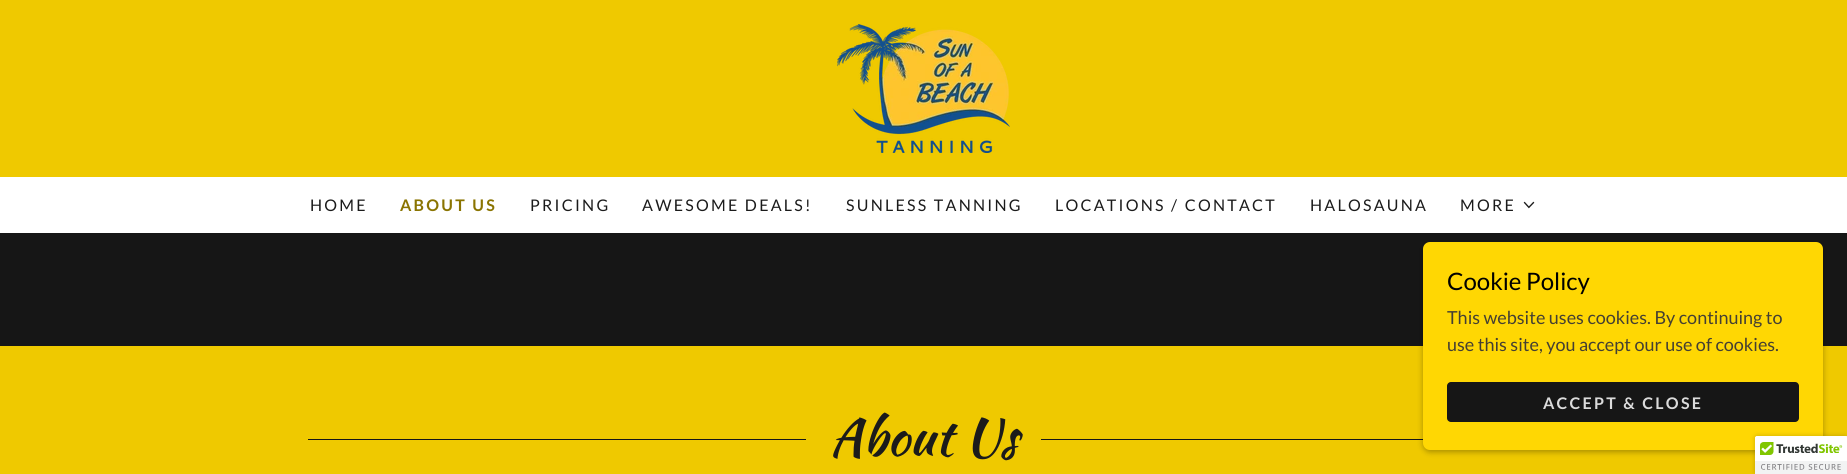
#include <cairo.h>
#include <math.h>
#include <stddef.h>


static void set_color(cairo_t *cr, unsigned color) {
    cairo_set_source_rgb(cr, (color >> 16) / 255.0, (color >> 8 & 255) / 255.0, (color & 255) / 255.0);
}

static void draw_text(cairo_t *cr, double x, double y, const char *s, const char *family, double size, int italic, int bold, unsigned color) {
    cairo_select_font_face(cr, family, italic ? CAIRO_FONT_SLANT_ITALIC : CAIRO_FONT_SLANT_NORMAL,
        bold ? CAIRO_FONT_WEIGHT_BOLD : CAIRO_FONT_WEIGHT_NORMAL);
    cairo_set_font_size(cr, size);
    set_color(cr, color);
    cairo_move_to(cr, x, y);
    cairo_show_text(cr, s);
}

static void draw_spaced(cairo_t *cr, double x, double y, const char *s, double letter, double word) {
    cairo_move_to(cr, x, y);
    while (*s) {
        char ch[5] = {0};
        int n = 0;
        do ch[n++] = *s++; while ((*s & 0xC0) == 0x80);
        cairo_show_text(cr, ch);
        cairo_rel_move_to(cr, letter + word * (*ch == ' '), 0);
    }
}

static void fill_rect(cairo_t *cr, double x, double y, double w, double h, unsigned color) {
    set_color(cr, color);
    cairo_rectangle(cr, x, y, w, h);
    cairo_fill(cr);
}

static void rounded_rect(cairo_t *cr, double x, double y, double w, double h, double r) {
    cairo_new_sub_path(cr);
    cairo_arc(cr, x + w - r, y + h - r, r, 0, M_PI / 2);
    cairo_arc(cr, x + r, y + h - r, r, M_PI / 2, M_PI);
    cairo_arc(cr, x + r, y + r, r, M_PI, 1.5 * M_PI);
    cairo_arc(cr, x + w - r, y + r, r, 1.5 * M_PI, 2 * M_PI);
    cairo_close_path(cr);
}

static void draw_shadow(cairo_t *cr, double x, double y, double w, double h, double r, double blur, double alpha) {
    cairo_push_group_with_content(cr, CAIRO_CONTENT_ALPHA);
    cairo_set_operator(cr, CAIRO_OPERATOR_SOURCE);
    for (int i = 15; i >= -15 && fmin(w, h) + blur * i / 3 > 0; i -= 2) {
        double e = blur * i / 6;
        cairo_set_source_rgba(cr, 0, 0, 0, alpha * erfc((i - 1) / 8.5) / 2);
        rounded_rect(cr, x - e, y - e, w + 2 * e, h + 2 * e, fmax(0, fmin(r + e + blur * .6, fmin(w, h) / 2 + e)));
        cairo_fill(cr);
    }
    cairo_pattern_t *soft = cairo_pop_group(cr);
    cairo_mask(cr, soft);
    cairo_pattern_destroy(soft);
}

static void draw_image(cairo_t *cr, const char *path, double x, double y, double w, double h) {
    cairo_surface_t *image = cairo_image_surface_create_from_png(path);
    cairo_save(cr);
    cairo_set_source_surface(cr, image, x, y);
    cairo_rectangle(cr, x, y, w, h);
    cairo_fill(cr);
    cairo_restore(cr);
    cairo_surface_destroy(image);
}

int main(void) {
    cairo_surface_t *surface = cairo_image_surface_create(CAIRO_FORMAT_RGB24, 1847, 474);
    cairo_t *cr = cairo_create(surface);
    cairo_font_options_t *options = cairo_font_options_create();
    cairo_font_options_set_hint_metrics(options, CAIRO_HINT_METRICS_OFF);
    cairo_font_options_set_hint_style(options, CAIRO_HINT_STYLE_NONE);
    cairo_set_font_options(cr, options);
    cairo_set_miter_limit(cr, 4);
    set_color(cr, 0xEFC900);
    cairo_paint(cr);
    draw_image(cr, "assets/img1.png", 837, 24, 173, 129);
    fill_rect(cr, 0, 177, 1847, 56, 0xFFFFFF);
    cairo_select_font_face(cr, "Lato", CAIRO_FONT_SLANT_NORMAL, CAIRO_FONT_WEIGHT_NORMAL);
    cairo_set_font_size(cr, 16);
    set_color(cr, 0x1B1B1B);
    draw_spaced(cr, 310, 211, "HOME", 2.25, 0);
    cairo_select_font_face(cr, "Lato", CAIRO_FONT_SLANT_NORMAL, CAIRO_FONT_WEIGHT_BOLD);
    set_color(cr, 0x8A7401);
    draw_spaced(cr, 400, 211, "ABOUT US", 2.25, 0);
    cairo_select_font_face(cr, "Lato", CAIRO_FONT_SLANT_NORMAL, CAIRO_FONT_WEIGHT_NORMAL);
    set_color(cr, 0x1B1B1B);
    draw_spaced(cr, 530, 211, "PRICING", 2.25, 0);
    draw_spaced(cr, 642, 211, "AWESOME DEALS!", 2.25, 0);
    draw_spaced(cr, 846, 211, "SUNLESS TANNING", 2.25, 0);
    draw_spaced(cr, 1055, 211, "LOCATIONS / CONTACT", 2.25, 0);
    draw_spaced(cr, 1310, 211, "HALOSAUNA", 2.25, 0);
    draw_spaced(cr, 1460, 211, "MORE", 2.25, 0);
    draw_image(cr, "assets/img2.png", 1523, 201, 12, 8);
    fill_rect(cr, 0, 233, 1847, 113, 0x161616);
    fill_rect(cr, 1041, 439, 382, 1, 0x161616);
    set_color(cr, 0x000000);
    draw_shadow(cr, 1423, 244, 400, 208, 7, 3, 0.3);
    set_color(cr, 0xFFD703);
    rounded_rect(cr, 1423, 242, 400, 208, 7);
    cairo_fill(cr);
    draw_text(cr, 1447, 290, "Cookie Policy", "Lato", 24, 0, 0, 0x000000);
    draw_text(cr, 1447, 324, "This website uses cookies. By continuing to", "Lato", 18, 0, 0, 0x443F33);
    draw_text(cr, 1447, 351, "use this site, you accept our use of cookies.", "Lato", 18, 0, 0, 0x443F33);
    set_color(cr, 0x161616);
    rounded_rect(cr, 1447, 382, 352, 40, 4);
    cairo_fill(cr);
    cairo_select_font_face(cr, "Lato", CAIRO_FONT_SLANT_NORMAL, CAIRO_FONT_WEIGHT_BOLD);
    cairo_set_font_size(cr, 16);
    set_color(cr, 0xDBDBDB);
    draw_spaced(cr, 1543, 409, "ACCEPT & CLOSE", 2.25, 0);
    fill_rect(cr, 308, 439, 498, 1, 0x161616);
    draw_text(cr, 830, 455, "About Us", "Kaushan Script", 51, 0, 0, 0x1B1B1B);
    set_color(cr, 0x000000);
    draw_shadow(cr, 1755, 436, 92, 38, 2, 2.5, 0.2);
    set_color(cr, 0xFFFFFF);
    cairo_new_path(cr);
    cairo_move_to(cr, 1757, 436);
    cairo_line_to(cr, 1847, 436);
    cairo_line_to(cr, 1847, 474);
    cairo_line_to(cr, 1755, 474);
    cairo_line_to(cr, 1755, 438);
    cairo_curve_to(cr, 1755, 437, 1756, 436, 1757, 436);
    cairo_close_path(cr);
    cairo_fill(cr);
    draw_image(cr, "assets/img3.png", 1755, 436, 92, 38);
    cairo_surface_write_to_png(surface, "output.png");
    cairo_font_options_destroy(options);
    cairo_destroy(cr);
    cairo_surface_destroy(surface);
    return 0;
}
